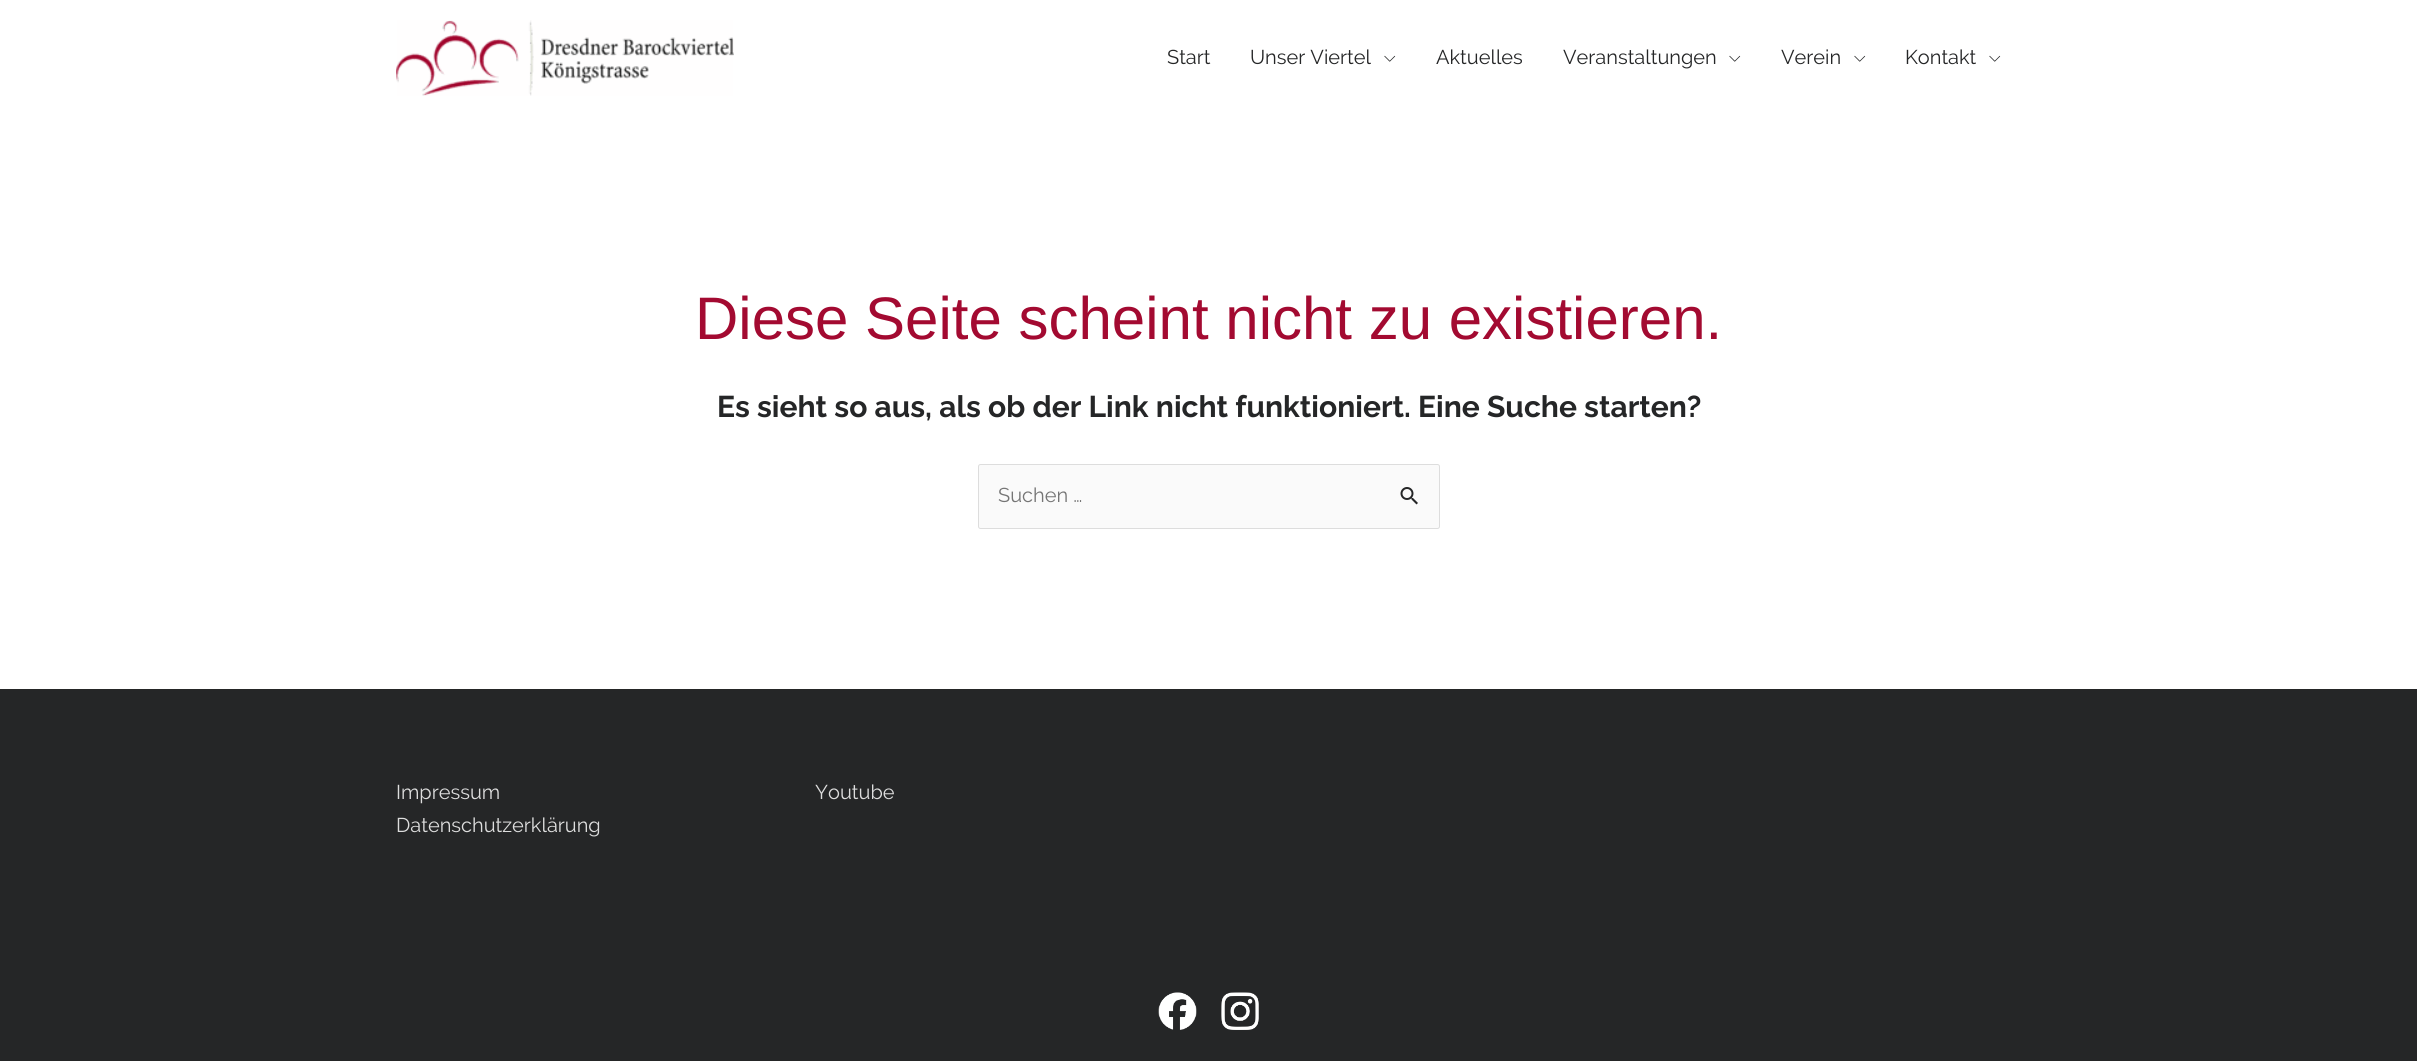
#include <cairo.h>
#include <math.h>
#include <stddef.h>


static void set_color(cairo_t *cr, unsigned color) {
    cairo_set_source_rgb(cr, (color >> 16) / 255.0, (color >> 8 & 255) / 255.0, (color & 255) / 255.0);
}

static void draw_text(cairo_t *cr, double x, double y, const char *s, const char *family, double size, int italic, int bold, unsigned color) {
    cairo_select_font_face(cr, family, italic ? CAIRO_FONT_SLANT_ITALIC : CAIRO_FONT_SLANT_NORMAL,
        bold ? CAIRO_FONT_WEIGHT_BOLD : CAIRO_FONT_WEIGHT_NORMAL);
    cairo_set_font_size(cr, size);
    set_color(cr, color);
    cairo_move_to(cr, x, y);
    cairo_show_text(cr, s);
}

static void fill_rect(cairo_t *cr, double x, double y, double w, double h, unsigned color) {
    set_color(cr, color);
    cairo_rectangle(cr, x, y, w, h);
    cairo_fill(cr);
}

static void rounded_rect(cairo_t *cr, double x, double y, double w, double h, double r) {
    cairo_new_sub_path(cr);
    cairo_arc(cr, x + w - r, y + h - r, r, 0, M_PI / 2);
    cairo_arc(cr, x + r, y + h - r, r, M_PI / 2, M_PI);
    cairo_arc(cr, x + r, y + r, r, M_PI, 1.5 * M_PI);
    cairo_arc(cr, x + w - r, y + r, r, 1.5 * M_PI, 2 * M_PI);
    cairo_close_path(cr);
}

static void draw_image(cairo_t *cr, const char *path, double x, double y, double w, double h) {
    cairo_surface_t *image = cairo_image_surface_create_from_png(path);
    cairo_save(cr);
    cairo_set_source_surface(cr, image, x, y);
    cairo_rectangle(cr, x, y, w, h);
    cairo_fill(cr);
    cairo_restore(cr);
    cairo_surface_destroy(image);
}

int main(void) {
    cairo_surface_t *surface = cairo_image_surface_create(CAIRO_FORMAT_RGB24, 2417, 1061);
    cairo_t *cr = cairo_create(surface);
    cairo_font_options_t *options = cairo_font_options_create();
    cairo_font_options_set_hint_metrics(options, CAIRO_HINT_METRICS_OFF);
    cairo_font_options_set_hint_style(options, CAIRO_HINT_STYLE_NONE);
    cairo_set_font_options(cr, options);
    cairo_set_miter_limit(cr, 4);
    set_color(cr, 0xFFFFFF);
    cairo_paint(cr);
    draw_image(cr, "assets/img1.png", 396, 20, 338, 76);
    draw_text(cr, 1167, 64, "Start", "Raleway", 20, 0, 0, 0x252627);
    draw_text(cr, 1250, 64, "Unser Viertel", "Raleway", 20, 0, 0, 0x252627);
    draw_image(cr, "assets/img2.png", 1384, 55, 12, 7);
    draw_text(cr, 1436, 64, "Aktuelles", "Raleway", 20, 0, 0, 0x252627);
    draw_text(cr, 1563, 64, "Veranstaltungen", "Raleway", 20, 0, 0, 0x252627);
    draw_image(cr, "assets/img2.png", 1729, 55, 12, 7);
    draw_text(cr, 1781, 64, "Verein", "Raleway", 20, 0, 0, 0x252627);
    draw_image(cr, "assets/img2.png", 1854, 55, 12, 7);
    draw_text(cr, 1905, 64, "Kontakt", "Raleway", 20, 0, 0, 0x252627);
    draw_image(cr, "assets/img2.png", 1989, 55, 12, 7);
    draw_text(cr, 695, 339, "Diese Seite scheint nicht zu existieren.", "Liberation Sans", 60, 0, 0, 0xA30A31);
    draw_text(cr, 717, 417, "Es sieht so aus, als ob der Link nicht funktioniert. Eine Suche starten?", "Raleway", 30, 0, 1, 0x252627);
    set_color(cr, 0xFAFAFA);
    rounded_rect(cr, 978.5, 464.5, 461, 64, 2);
    cairo_fill_preserve(cr);
    set_color(cr, 0xDDDDDD);
    cairo_set_line_width(cr, 1);
    cairo_stroke(cr);
    draw_text(cr, 998, 502, "Suchen …", "Raleway", 20, 0, 0, 0x757575);
    draw_image(cr, "assets/img3.png", 1400, 487, 18, 18);
    fill_rect(cr, 0, 689, 2417, 372, 0x252627);
    draw_text(cr, 396, 799, "Impressum", "Raleway", 20, 0, 0, 0xDDDDDD);
    draw_text(cr, 396, 832, "Datenschutzerklärung", "Raleway", 20, 0, 0, 0xDDDDDD);
    draw_text(cr, 815, 799, "Youtube", "Raleway", 20, 0, 0, 0xDDDDDD);
    draw_image(cr, "assets/img4.png", 1158, 992, 39, 38);
    draw_image(cr, "assets/img5.png", 1221, 992, 38, 38);
    cairo_surface_write_to_png(surface, "output.png");
    cairo_font_options_destroy(options);
    cairo_destroy(cr);
    cairo_surface_destroy(surface);
    return 0;
}
